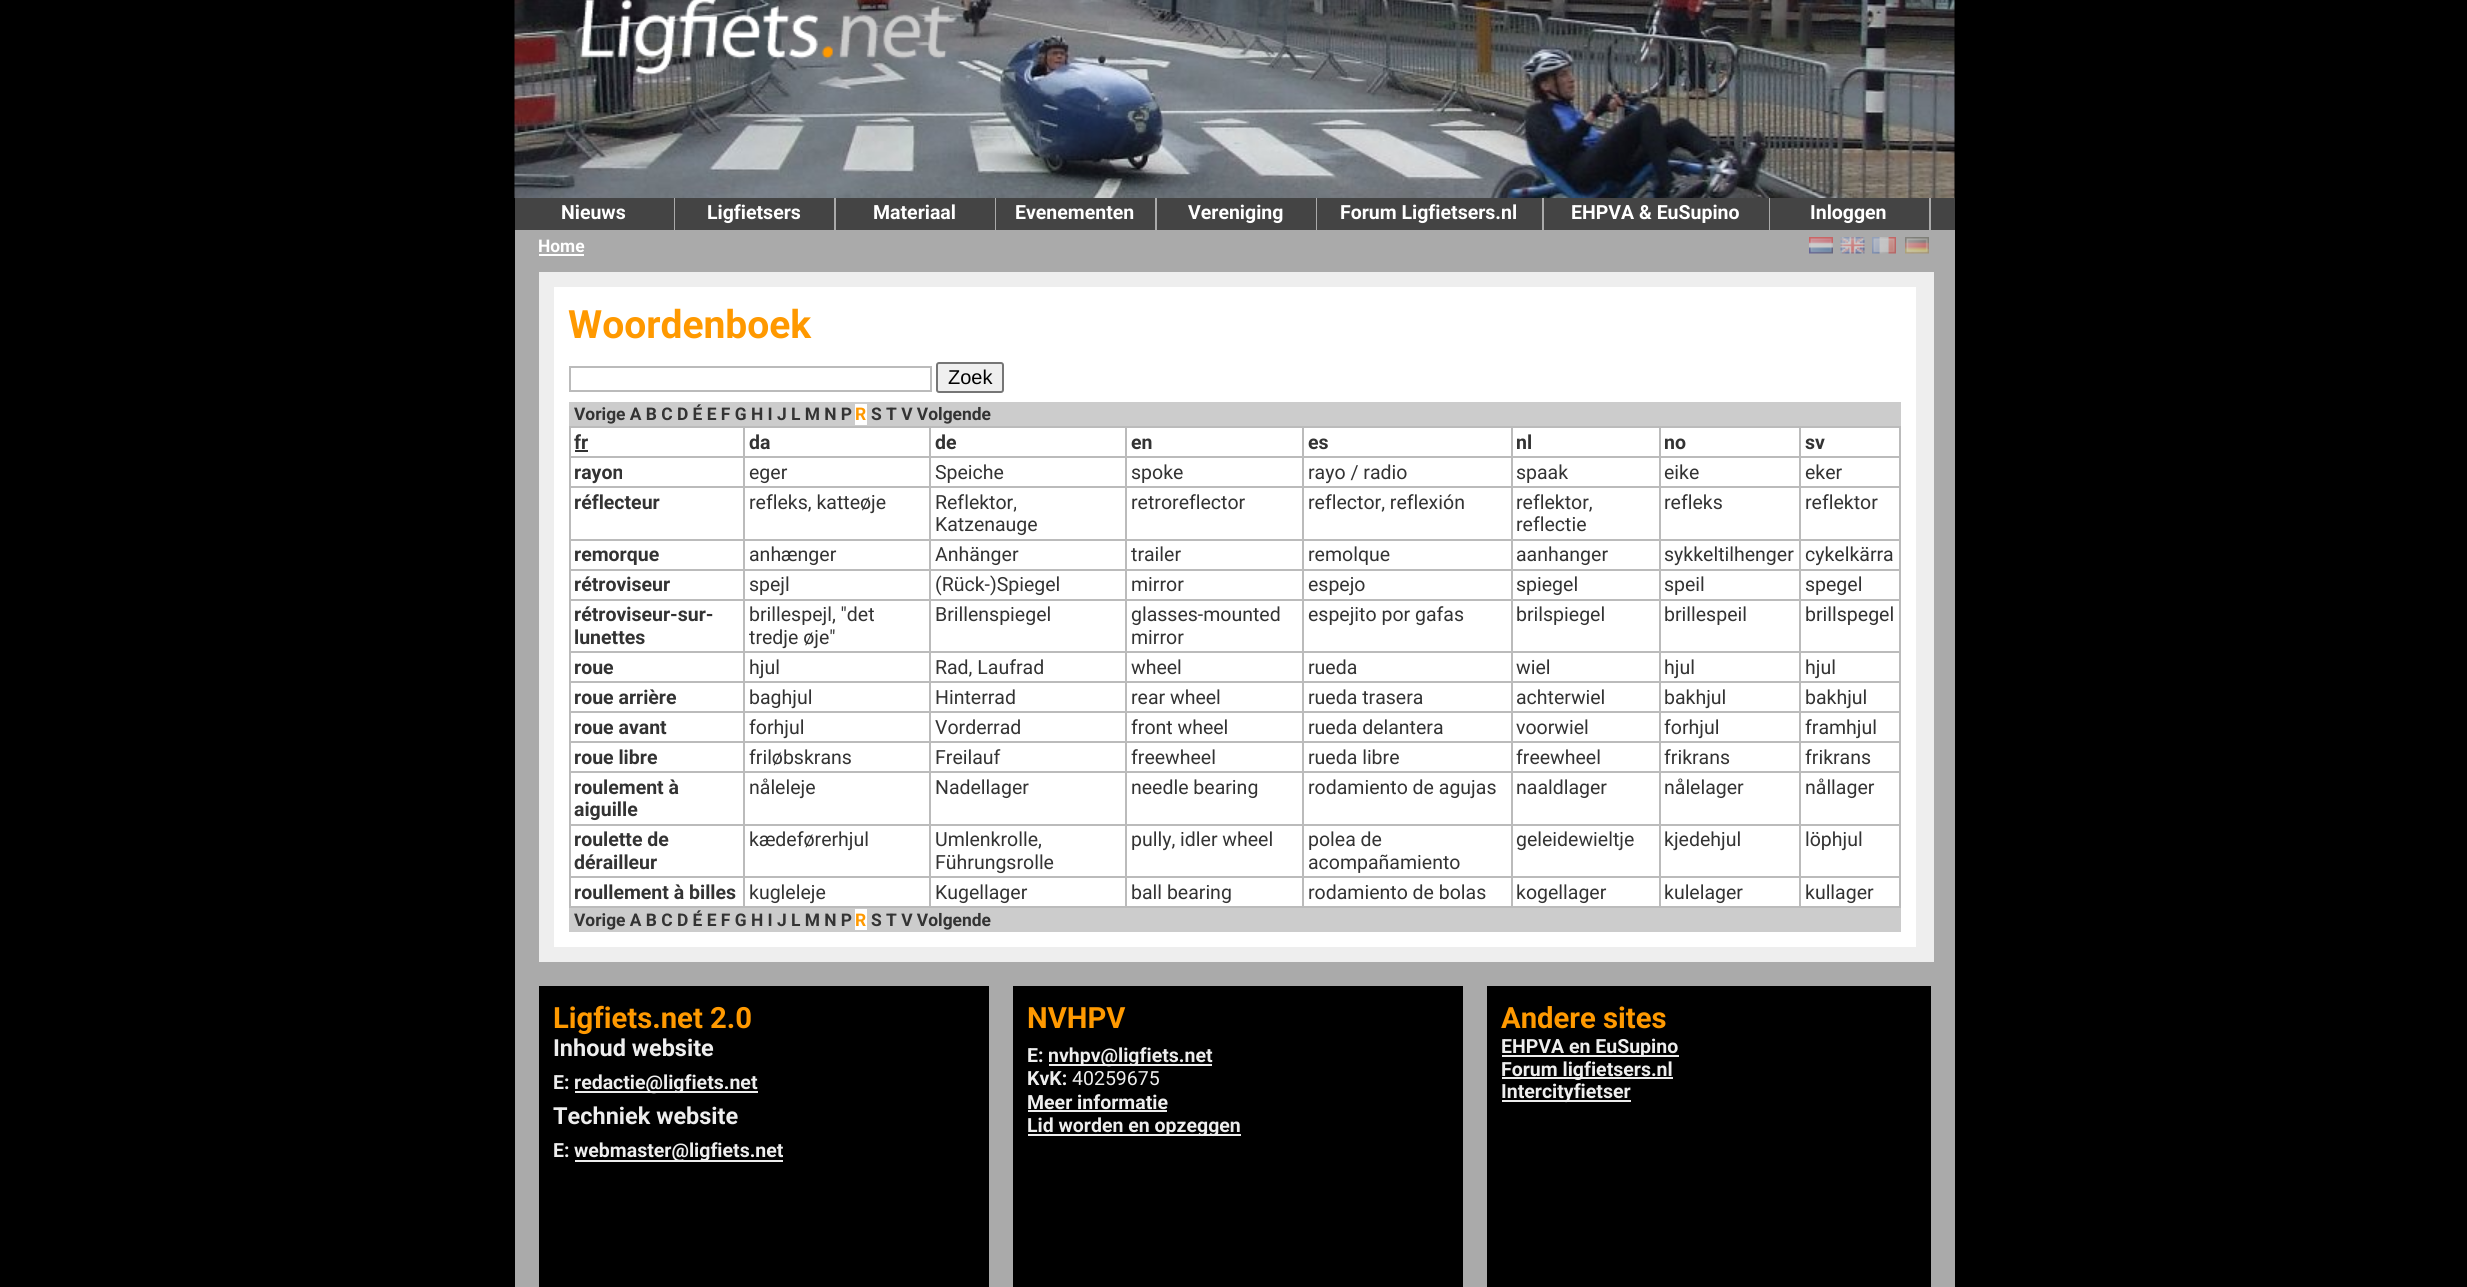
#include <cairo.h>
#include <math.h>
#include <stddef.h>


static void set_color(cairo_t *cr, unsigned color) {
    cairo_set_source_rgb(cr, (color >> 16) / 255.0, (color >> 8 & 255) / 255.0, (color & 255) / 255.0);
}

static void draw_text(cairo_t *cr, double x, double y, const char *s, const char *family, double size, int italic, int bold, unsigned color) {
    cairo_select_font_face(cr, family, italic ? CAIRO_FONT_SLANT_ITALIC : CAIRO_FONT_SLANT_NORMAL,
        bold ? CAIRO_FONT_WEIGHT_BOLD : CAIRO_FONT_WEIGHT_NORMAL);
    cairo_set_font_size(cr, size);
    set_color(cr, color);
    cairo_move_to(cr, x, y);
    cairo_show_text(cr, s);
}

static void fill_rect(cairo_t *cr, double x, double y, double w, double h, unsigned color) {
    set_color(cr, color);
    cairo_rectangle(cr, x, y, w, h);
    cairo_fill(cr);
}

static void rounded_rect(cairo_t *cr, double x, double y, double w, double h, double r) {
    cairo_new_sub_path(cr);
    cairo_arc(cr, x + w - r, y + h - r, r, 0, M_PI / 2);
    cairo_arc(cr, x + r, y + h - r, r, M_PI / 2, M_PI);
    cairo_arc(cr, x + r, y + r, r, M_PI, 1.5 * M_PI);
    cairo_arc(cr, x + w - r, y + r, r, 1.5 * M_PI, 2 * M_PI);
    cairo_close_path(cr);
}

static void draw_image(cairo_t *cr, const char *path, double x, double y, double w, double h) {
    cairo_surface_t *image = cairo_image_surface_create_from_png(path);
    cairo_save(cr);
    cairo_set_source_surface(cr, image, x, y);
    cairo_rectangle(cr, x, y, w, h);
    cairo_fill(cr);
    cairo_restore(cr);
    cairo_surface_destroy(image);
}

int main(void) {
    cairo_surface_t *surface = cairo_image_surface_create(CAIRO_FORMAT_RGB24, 2467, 1287);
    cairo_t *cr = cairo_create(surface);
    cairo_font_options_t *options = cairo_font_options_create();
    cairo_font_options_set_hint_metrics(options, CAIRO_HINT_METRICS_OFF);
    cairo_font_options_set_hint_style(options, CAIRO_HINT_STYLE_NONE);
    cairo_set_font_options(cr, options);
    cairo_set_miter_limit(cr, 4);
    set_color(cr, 0x000000);
    cairo_paint(cr);
    draw_image(cr, "assets/img1.png", 514, 0, 1441, 198);
    draw_image(cr, "assets/img2.png", 580, 0, 370, 76);
    fill_rect(cr, 515, 198, 1440, 32, 0x444444);
    fill_rect(cr, 674, 198, 1, 32, 0xAAAAAA);
    draw_text(cr, 561, 219, "Nieuws", "Roboto", 19.5, 0, 1, 0xFFFFFF);
    fill_rect(cr, 834, 198, 2, 32, 0xAAAAAA);
    draw_text(cr, 707, 219, "Ligfietsers", "Roboto", 19.5, 0, 1, 0xFFFFFF);
    fill_rect(cr, 995, 198, 1, 32, 0xAAAAAA);
    draw_text(cr, 873, 219, "Materiaal", "Roboto", 19.5, 0, 1, 0xFFFFFF);
    fill_rect(cr, 1155, 198, 2, 32, 0xAAAAAA);
    draw_text(cr, 1015, 219, "Evenementen", "Roboto", 19.5, 0, 1, 0xFFFFFF);
    fill_rect(cr, 1316, 198, 1, 32, 0xAAAAAA);
    draw_text(cr, 1188, 219, "Vereniging", "Roboto", 19.5, 0, 1, 0xFFFFFF);
    fill_rect(cr, 1542, 198, 2, 32, 0xAAAAAA);
    draw_text(cr, 1340, 219, "Forum Ligfietsers.nl", "Roboto", 19.5, 0, 1, 0xFFFFFF);
    fill_rect(cr, 1769, 198, 1, 32, 0xAAAAAA);
    draw_text(cr, 1571, 219, "EHPVA & EuSupino", "Roboto", 19.5, 0, 1, 0xFFFFFF);
    fill_rect(cr, 1929, 198, 2, 32, 0xAAAAAA);
    draw_text(cr, 1810, 219, "Inloggen", "Roboto", 19.5, 0, 1, 0xFFFFFF);
    fill_rect(cr, 515, 230, 1440, 1057, 0xAAAAAA);
    draw_text(cr, 538, 252, "Home", "Roboto", 17.4, 0, 1, 0xFFFFFF);
    fill_rect(cr, 539, 254, 45, 2, 0xFFFFFF);
    draw_image(cr, "assets/img3.png", 1809, 237, 24, 17);
    draw_image(cr, "assets/img4.png", 1840, 237, 25, 17);
    draw_image(cr, "assets/img5.png", 1872, 237, 24, 17);
    draw_image(cr, "assets/img6.png", 1905, 237, 24, 17);
    fill_rect(cr, 539, 272, 1395, 690, 0xEEEEEE);
    fill_rect(cr, 554, 287, 1362, 660, 0xFFFFFF);
    draw_text(cr, 568, 338, "Woordenboek", "Roboto", 39, 0, 1, 0xFF9900);
    cairo_rectangle(cr, 570, 367, 361, 24);
    set_color(cr, 0xBBBBBB);
    cairo_stroke(cr);
    set_color(cr, 0xEFEFEF);
    rounded_rect(cr, 937, 363, 66, 29, 2);
    cairo_fill_preserve(cr);
    set_color(cr, 0x767676);
    cairo_stroke(cr);
    draw_text(cr, 948, 384, "Zoek", "Liberation Sans", 20, 0, 0, 0x000000);
    fill_rect(cr, 569, 402, 1332, 24, 0xCCCCCC);
    draw_text(cr, 574, 420, "Vorige A B C D É E F G H I J L M N P", "Roboto", 17.4, 0, 1, 0x333333);
    fill_rect(cr, 855, 404, 12, 21, 0xFFFFFF);
    draw_text(cr, 855, 420, "R", "Roboto", 17.4, 0, 1, 0xFF9900);
    draw_text(cr, 871, 420, "S T V Volgende", "Roboto", 17.4, 0, 1, 0x333333);
    fill_rect(cr, 569, 426, 1332, 2, 0xBBBBBB);
    fill_rect(cr, 1899, 426, 2, 482, 0xBBBBBB);
    fill_rect(cr, 569, 906, 1332, 2, 0xBBBBBB);
    fill_rect(cr, 569, 426, 2, 482, 0xBBBBBB);
    draw_text(cr, 574, 449, "fr", "Roboto", 19.5, 0, 1, 0x333333);
    fill_rect(cr, 575, 450, 13, 2, 0x333333);
    fill_rect(cr, 1799, 456, 102, 2, 0xBBBBBB);
    fill_rect(cr, 1799, 486, 102, 2, 0xBBBBBB);
    fill_rect(cr, 1799, 539, 102, 2, 0xBBBBBB);
    fill_rect(cr, 1799, 569, 102, 2, 0xBBBBBB);
    fill_rect(cr, 1799, 599, 102, 2, 0xBBBBBB);
    fill_rect(cr, 1799, 651, 102, 2, 0xBBBBBB);
    fill_rect(cr, 1799, 681, 102, 2, 0xBBBBBB);
    fill_rect(cr, 1799, 711, 102, 2, 0xBBBBBB);
    fill_rect(cr, 1799, 741, 102, 2, 0xBBBBBB);
    fill_rect(cr, 1799, 771, 102, 2, 0xBBBBBB);
    fill_rect(cr, 1799, 824, 102, 2, 0xBBBBBB);
    fill_rect(cr, 1799, 876, 102, 2, 0xBBBBBB);
    fill_rect(cr, 1799, 876, 2, 32, 0xBBBBBB);
    fill_rect(cr, 1659, 876, 141, 2, 0xBBBBBB);
    fill_rect(cr, 1799, 824, 2, 54, 0xBBBBBB);
    fill_rect(cr, 1659, 824, 141, 2, 0xBBBBBB);
    fill_rect(cr, 1799, 771, 2, 54, 0xBBBBBB);
    fill_rect(cr, 1659, 771, 141, 2, 0xBBBBBB);
    fill_rect(cr, 1799, 741, 2, 32, 0xBBBBBB);
    fill_rect(cr, 1659, 741, 141, 2, 0xBBBBBB);
    fill_rect(cr, 1799, 711, 2, 32, 0xBBBBBB);
    fill_rect(cr, 1659, 711, 141, 2, 0xBBBBBB);
    fill_rect(cr, 1799, 681, 2, 32, 0xBBBBBB);
    fill_rect(cr, 1659, 681, 141, 2, 0xBBBBBB);
    fill_rect(cr, 1799, 651, 2, 32, 0xBBBBBB);
    fill_rect(cr, 1659, 651, 141, 2, 0xBBBBBB);
    fill_rect(cr, 1799, 599, 2, 54, 0xBBBBBB);
    fill_rect(cr, 1659, 599, 141, 2, 0xBBBBBB);
    fill_rect(cr, 1799, 569, 2, 31, 0xBBBBBB);
    fill_rect(cr, 1659, 569, 141, 2, 0xBBBBBB);
    fill_rect(cr, 1799, 539, 2, 31, 0xBBBBBB);
    fill_rect(cr, 1659, 539, 141, 2, 0xBBBBBB);
    fill_rect(cr, 1799, 486, 2, 54, 0xBBBBBB);
    fill_rect(cr, 1659, 486, 141, 2, 0xBBBBBB);
    fill_rect(cr, 1799, 456, 2, 32, 0xBBBBBB);
    fill_rect(cr, 1659, 456, 141, 2, 0xBBBBBB);
    fill_rect(cr, 1659, 876, 2, 32, 0xBBBBBB);
    fill_rect(cr, 1511, 876, 150, 2, 0xBBBBBB);
    fill_rect(cr, 1659, 824, 2, 54, 0xBBBBBB);
    fill_rect(cr, 1511, 824, 150, 2, 0xBBBBBB);
    fill_rect(cr, 1659, 771, 2, 54, 0xBBBBBB);
    fill_rect(cr, 1511, 771, 150, 2, 0xBBBBBB);
    fill_rect(cr, 1659, 741, 2, 32, 0xBBBBBB);
    fill_rect(cr, 1511, 741, 150, 2, 0xBBBBBB);
    fill_rect(cr, 1659, 711, 2, 32, 0xBBBBBB);
    fill_rect(cr, 1511, 711, 150, 2, 0xBBBBBB);
    fill_rect(cr, 1659, 681, 2, 32, 0xBBBBBB);
    fill_rect(cr, 1511, 681, 150, 2, 0xBBBBBB);
    fill_rect(cr, 1659, 651, 2, 32, 0xBBBBBB);
    fill_rect(cr, 1511, 651, 150, 2, 0xBBBBBB);
    fill_rect(cr, 1659, 599, 2, 54, 0xBBBBBB);
    fill_rect(cr, 1511, 599, 150, 2, 0xBBBBBB);
    fill_rect(cr, 1659, 569, 2, 31, 0xBBBBBB);
    fill_rect(cr, 1511, 569, 150, 2, 0xBBBBBB);
    fill_rect(cr, 1659, 539, 2, 31, 0xBBBBBB);
    fill_rect(cr, 1511, 539, 150, 2, 0xBBBBBB);
    fill_rect(cr, 1659, 486, 2, 54, 0xBBBBBB);
    fill_rect(cr, 1511, 486, 150, 2, 0xBBBBBB);
    fill_rect(cr, 1659, 456, 2, 32, 0xBBBBBB);
    fill_rect(cr, 1511, 456, 150, 2, 0xBBBBBB);
    fill_rect(cr, 1511, 876, 2, 32, 0xBBBBBB);
    fill_rect(cr, 1302, 876, 210, 2, 0xBBBBBB);
    fill_rect(cr, 1511, 824, 2, 54, 0xBBBBBB);
    fill_rect(cr, 1302, 824, 210, 2, 0xBBBBBB);
    fill_rect(cr, 1511, 771, 2, 54, 0xBBBBBB);
    fill_rect(cr, 1302, 771, 210, 2, 0xBBBBBB);
    fill_rect(cr, 1511, 741, 2, 32, 0xBBBBBB);
    fill_rect(cr, 1302, 741, 210, 2, 0xBBBBBB);
    fill_rect(cr, 1511, 711, 2, 32, 0xBBBBBB);
    fill_rect(cr, 1302, 711, 210, 2, 0xBBBBBB);
    fill_rect(cr, 1511, 681, 2, 32, 0xBBBBBB);
    fill_rect(cr, 1302, 681, 210, 2, 0xBBBBBB);
    fill_rect(cr, 1511, 651, 2, 32, 0xBBBBBB);
    fill_rect(cr, 1302, 651, 210, 2, 0xBBBBBB);
    fill_rect(cr, 1511, 599, 2, 54, 0xBBBBBB);
    fill_rect(cr, 1302, 599, 210, 2, 0xBBBBBB);
    fill_rect(cr, 1511, 569, 2, 31, 0xBBBBBB);
    fill_rect(cr, 1302, 569, 210, 2, 0xBBBBBB);
    fill_rect(cr, 1511, 539, 2, 31, 0xBBBBBB);
    fill_rect(cr, 1302, 539, 210, 2, 0xBBBBBB);
    fill_rect(cr, 1511, 486, 2, 54, 0xBBBBBB);
    fill_rect(cr, 1302, 486, 210, 2, 0xBBBBBB);
    fill_rect(cr, 1511, 456, 2, 32, 0xBBBBBB);
    fill_rect(cr, 1302, 456, 210, 2, 0xBBBBBB);
    fill_rect(cr, 1302, 876, 2, 32, 0xBBBBBB);
    fill_rect(cr, 1125, 876, 179, 2, 0xBBBBBB);
    fill_rect(cr, 1302, 824, 2, 54, 0xBBBBBB);
    fill_rect(cr, 1125, 824, 179, 2, 0xBBBBBB);
    fill_rect(cr, 1302, 771, 2, 54, 0xBBBBBB);
    fill_rect(cr, 1125, 771, 179, 2, 0xBBBBBB);
    fill_rect(cr, 1302, 741, 2, 32, 0xBBBBBB);
    fill_rect(cr, 1125, 741, 179, 2, 0xBBBBBB);
    fill_rect(cr, 1302, 711, 2, 32, 0xBBBBBB);
    fill_rect(cr, 1125, 711, 179, 2, 0xBBBBBB);
    fill_rect(cr, 1302, 681, 2, 32, 0xBBBBBB);
    fill_rect(cr, 1125, 681, 179, 2, 0xBBBBBB);
    fill_rect(cr, 1302, 651, 2, 32, 0xBBBBBB);
    fill_rect(cr, 1125, 651, 179, 2, 0xBBBBBB);
    fill_rect(cr, 1302, 599, 2, 54, 0xBBBBBB);
    fill_rect(cr, 1125, 599, 179, 2, 0xBBBBBB);
    fill_rect(cr, 1302, 569, 2, 31, 0xBBBBBB);
    fill_rect(cr, 1125, 569, 179, 2, 0xBBBBBB);
    fill_rect(cr, 1302, 539, 2, 31, 0xBBBBBB);
    fill_rect(cr, 1125, 539, 179, 2, 0xBBBBBB);
    fill_rect(cr, 1302, 486, 2, 54, 0xBBBBBB);
    fill_rect(cr, 1125, 486, 179, 2, 0xBBBBBB);
    fill_rect(cr, 1302, 456, 2, 32, 0xBBBBBB);
    fill_rect(cr, 1125, 456, 179, 2, 0xBBBBBB);
    fill_rect(cr, 1125, 876, 2, 32, 0xBBBBBB);
    fill_rect(cr, 929, 876, 198, 2, 0xBBBBBB);
    fill_rect(cr, 1125, 824, 2, 54, 0xBBBBBB);
    fill_rect(cr, 929, 824, 198, 2, 0xBBBBBB);
    fill_rect(cr, 1125, 771, 2, 54, 0xBBBBBB);
    fill_rect(cr, 929, 771, 198, 2, 0xBBBBBB);
    fill_rect(cr, 1125, 741, 2, 32, 0xBBBBBB);
    fill_rect(cr, 929, 741, 198, 2, 0xBBBBBB);
    fill_rect(cr, 1125, 711, 2, 32, 0xBBBBBB);
    fill_rect(cr, 929, 711, 198, 2, 0xBBBBBB);
    fill_rect(cr, 1125, 681, 2, 32, 0xBBBBBB);
    fill_rect(cr, 929, 681, 198, 2, 0xBBBBBB);
    fill_rect(cr, 1125, 651, 2, 32, 0xBBBBBB);
    fill_rect(cr, 929, 651, 198, 2, 0xBBBBBB);
    fill_rect(cr, 1125, 599, 2, 54, 0xBBBBBB);
    fill_rect(cr, 929, 599, 198, 2, 0xBBBBBB);
    fill_rect(cr, 1125, 569, 2, 31, 0xBBBBBB);
    fill_rect(cr, 929, 569, 198, 2, 0xBBBBBB);
    fill_rect(cr, 1125, 539, 2, 31, 0xBBBBBB);
    fill_rect(cr, 929, 539, 198, 2, 0xBBBBBB);
    fill_rect(cr, 1125, 486, 2, 54, 0xBBBBBB);
    fill_rect(cr, 929, 486, 198, 2, 0xBBBBBB);
    fill_rect(cr, 1125, 456, 2, 32, 0xBBBBBB);
    fill_rect(cr, 929, 456, 198, 2, 0xBBBBBB);
    fill_rect(cr, 929, 876, 2, 32, 0xBBBBBB);
    fill_rect(cr, 743, 876, 187, 2, 0xBBBBBB);
    fill_rect(cr, 929, 824, 2, 54, 0xBBBBBB);
    fill_rect(cr, 743, 824, 187, 2, 0xBBBBBB);
    fill_rect(cr, 929, 771, 2, 54, 0xBBBBBB);
    fill_rect(cr, 743, 771, 187, 2, 0xBBBBBB);
    fill_rect(cr, 929, 741, 2, 32, 0xBBBBBB);
    fill_rect(cr, 743, 741, 187, 2, 0xBBBBBB);
    fill_rect(cr, 929, 711, 2, 32, 0xBBBBBB);
    fill_rect(cr, 743, 711, 187, 2, 0xBBBBBB);
    fill_rect(cr, 929, 681, 2, 32, 0xBBBBBB);
    fill_rect(cr, 743, 681, 187, 2, 0xBBBBBB);
    fill_rect(cr, 929, 651, 2, 32, 0xBBBBBB);
    fill_rect(cr, 743, 651, 187, 2, 0xBBBBBB);
    fill_rect(cr, 929, 599, 2, 54, 0xBBBBBB);
    fill_rect(cr, 743, 599, 187, 2, 0xBBBBBB);
    fill_rect(cr, 929, 569, 2, 31, 0xBBBBBB);
    fill_rect(cr, 743, 569, 187, 2, 0xBBBBBB);
    fill_rect(cr, 929, 539, 2, 31, 0xBBBBBB);
    fill_rect(cr, 743, 539, 187, 2, 0xBBBBBB);
    fill_rect(cr, 929, 486, 2, 54, 0xBBBBBB);
    fill_rect(cr, 743, 486, 187, 2, 0xBBBBBB);
    fill_rect(cr, 929, 456, 2, 32, 0xBBBBBB);
    fill_rect(cr, 743, 456, 187, 2, 0xBBBBBB);
    fill_rect(cr, 743, 876, 2, 32, 0xBBBBBB);
    fill_rect(cr, 569, 876, 175, 2, 0xBBBBBB);
    fill_rect(cr, 743, 824, 2, 54, 0xBBBBBB);
    fill_rect(cr, 569, 824, 175, 2, 0xBBBBBB);
    fill_rect(cr, 743, 771, 2, 54, 0xBBBBBB);
    fill_rect(cr, 569, 771, 175, 2, 0xBBBBBB);
    fill_rect(cr, 743, 741, 2, 32, 0xBBBBBB);
    fill_rect(cr, 569, 741, 175, 2, 0xBBBBBB);
    fill_rect(cr, 743, 711, 2, 32, 0xBBBBBB);
    fill_rect(cr, 569, 711, 175, 2, 0xBBBBBB);
    fill_rect(cr, 743, 681, 2, 32, 0xBBBBBB);
    fill_rect(cr, 569, 681, 175, 2, 0xBBBBBB);
    fill_rect(cr, 743, 651, 2, 32, 0xBBBBBB);
    fill_rect(cr, 569, 651, 175, 2, 0xBBBBBB);
    fill_rect(cr, 743, 599, 2, 54, 0xBBBBBB);
    fill_rect(cr, 569, 599, 175, 2, 0xBBBBBB);
    fill_rect(cr, 743, 569, 2, 31, 0xBBBBBB);
    fill_rect(cr, 569, 569, 175, 2, 0xBBBBBB);
    fill_rect(cr, 743, 539, 2, 31, 0xBBBBBB);
    fill_rect(cr, 569, 539, 175, 2, 0xBBBBBB);
    fill_rect(cr, 743, 486, 2, 54, 0xBBBBBB);
    fill_rect(cr, 569, 486, 175, 2, 0xBBBBBB);
    fill_rect(cr, 743, 456, 2, 32, 0xBBBBBB);
    fill_rect(cr, 569, 456, 175, 2, 0xBBBBBB);
    fill_rect(cr, 743, 426, 2, 32, 0xBBBBBB);
    draw_text(cr, 749, 449, "da", "Roboto", 19.5, 0, 1, 0x333333);
    fill_rect(cr, 929, 426, 2, 32, 0xBBBBBB);
    draw_text(cr, 935, 449, "de", "Roboto", 19.5, 0, 1, 0x333333);
    fill_rect(cr, 1125, 426, 2, 32, 0xBBBBBB);
    draw_text(cr, 1131, 449, "en", "Roboto", 19.5, 0, 1, 0x333333);
    fill_rect(cr, 1302, 426, 2, 32, 0xBBBBBB);
    draw_text(cr, 1308, 449, "es", "Roboto", 19.5, 0, 1, 0x333333);
    fill_rect(cr, 1511, 426, 2, 32, 0xBBBBBB);
    draw_text(cr, 1516, 449, "nl", "Roboto", 19.5, 0, 1, 0x333333);
    fill_rect(cr, 1659, 426, 2, 32, 0xBBBBBB);
    draw_text(cr, 1664, 449, "no", "Roboto", 19.5, 0, 1, 0x333333);
    fill_rect(cr, 1799, 426, 2, 32, 0xBBBBBB);
    draw_text(cr, 1805, 449, "sv", "Roboto", 19.5, 0, 1, 0x333333);
    draw_text(cr, 574, 479, "rayon", "Roboto", 19.5, 0, 1, 0x333333);
    draw_text(cr, 749, 479, "eger", "Roboto", 19.5, 0, 0, 0x333333);
    draw_text(cr, 935, 479, "Speiche", "Roboto", 19.5, 0, 0, 0x333333);
    draw_text(cr, 1131, 479, "spoke", "Roboto", 19.5, 0, 0, 0x333333);
    draw_text(cr, 1308, 479, "rayo / radio", "Roboto", 19.5, 0, 0, 0x333333);
    draw_text(cr, 1516, 479, "spaak", "Roboto", 19.5, 0, 0, 0x333333);
    draw_text(cr, 1664, 479, "eike", "Roboto", 19.5, 0, 0, 0x333333);
    draw_text(cr, 1805, 479, "eker", "Roboto", 19.5, 0, 0, 0x333333);
    draw_text(cr, 574, 509, "réflecteur", "Roboto", 19.5, 0, 1, 0x333333);
    draw_text(cr, 749, 509, "refleks, katteøje", "Roboto", 19.5, 0, 0, 0x333333);
    draw_text(cr, 935, 509, "Reflektor,", "Roboto", 19.5, 0, 0, 0x333333);
    draw_text(cr, 935, 531, "Katzenauge", "Roboto", 19.5, 0, 0, 0x333333);
    draw_text(cr, 1131, 509, "retroreflector", "Roboto", 19.5, 0, 0, 0x333333);
    draw_text(cr, 1308, 509, "reflector, reflexión", "Roboto", 19.5, 0, 0, 0x333333);
    draw_text(cr, 1516, 509, "reflektor,", "Roboto", 19.5, 0, 0, 0x333333);
    draw_text(cr, 1516, 531, "reflectie", "Roboto", 19.5, 0, 0, 0x333333);
    draw_text(cr, 1664, 509, "refleks", "Roboto", 19.5, 0, 0, 0x333333);
    draw_text(cr, 1805, 509, "reflektor", "Roboto", 19.5, 0, 0, 0x333333);
    draw_text(cr, 574, 561, "remorque", "Roboto", 19.5, 0, 1, 0x333333);
    draw_text(cr, 749, 561, "anhænger", "Roboto", 19.5, 0, 0, 0x333333);
    draw_text(cr, 935, 561, "Anhänger", "Roboto", 19.5, 0, 0, 0x333333);
    draw_text(cr, 1131, 561, "trailer", "Roboto", 19.5, 0, 0, 0x333333);
    draw_text(cr, 1308, 561, "remolque", "Roboto", 19.5, 0, 0, 0x333333);
    draw_text(cr, 1516, 561, "aanhanger", "Roboto", 19.5, 0, 0, 0x333333);
    draw_text(cr, 1664, 561, "sykkeltilhenger", "Roboto", 19.5, 0, 0, 0x333333);
    draw_text(cr, 1805, 561, "cykelkärra", "Roboto", 19.5, 0, 0, 0x333333);
    draw_text(cr, 574, 591, "rétroviseur", "Roboto", 19.5, 0, 1, 0x333333);
    draw_text(cr, 749, 591, "spejl", "Roboto", 19.5, 0, 0, 0x333333);
    draw_text(cr, 935, 591, "(Rück-)Spiegel", "Roboto", 19.5, 0, 0, 0x333333);
    draw_text(cr, 1131, 591, "mirror", "Roboto", 19.5, 0, 0, 0x333333);
    draw_text(cr, 1308, 591, "espejo", "Roboto", 19.5, 0, 0, 0x333333);
    draw_text(cr, 1516, 591, "spiegel", "Roboto", 19.5, 0, 0, 0x333333);
    draw_text(cr, 1664, 591, "speil", "Roboto", 19.5, 0, 0, 0x333333);
    draw_text(cr, 1805, 591, "spegel", "Roboto", 19.5, 0, 0, 0x333333);
    draw_text(cr, 574, 621, "rétroviseur-sur-", "Roboto", 19.5, 0, 1, 0x333333);
    draw_text(cr, 574, 644, "lunettes", "Roboto", 19.5, 0, 1, 0x333333);
    draw_text(cr, 749, 621, "brillespejl, \"det", "Roboto", 19.5, 0, 0, 0x333333);
    draw_text(cr, 749, 644, "tredje øje\"", "Roboto", 19.5, 0, 0, 0x333333);
    draw_text(cr, 935, 621, "Brillenspiegel", "Roboto", 19.5, 0, 0, 0x333333);
    draw_text(cr, 1131, 621, "glasses-mounted", "Roboto", 19.5, 0, 0, 0x333333);
    draw_text(cr, 1131, 644, "mirror", "Roboto", 19.5, 0, 0, 0x333333);
    draw_text(cr, 1308, 621, "espejito por gafas", "Roboto", 19.5, 0, 0, 0x333333);
    draw_text(cr, 1516, 621, "brilspiegel", "Roboto", 19.5, 0, 0, 0x333333);
    draw_text(cr, 1664, 621, "brillespeil", "Roboto", 19.5, 0, 0, 0x333333);
    draw_text(cr, 1805, 621, "brillspegel", "Roboto", 19.5, 0, 0, 0x333333);
    draw_text(cr, 574, 674, "roue", "Roboto", 19.5, 0, 1, 0x333333);
    draw_text(cr, 749, 674, "hjul", "Roboto", 19.5, 0, 0, 0x333333);
    draw_text(cr, 935, 674, "Rad, Laufrad", "Roboto", 19.5, 0, 0, 0x333333);
    draw_text(cr, 1131, 674, "wheel", "Roboto", 19.5, 0, 0, 0x333333);
    draw_text(cr, 1308, 674, "rueda", "Roboto", 19.5, 0, 0, 0x333333);
    draw_text(cr, 1516, 674, "wiel", "Roboto", 19.5, 0, 0, 0x333333);
    draw_text(cr, 1664, 674, "hjul", "Roboto", 19.5, 0, 0, 0x333333);
    draw_text(cr, 1805, 674, "hjul", "Roboto", 19.5, 0, 0, 0x333333);
    draw_text(cr, 574, 704, "roue arrière", "Roboto", 19.5, 0, 1, 0x333333);
    draw_text(cr, 749, 704, "baghjul", "Roboto", 19.5, 0, 0, 0x333333);
    draw_text(cr, 935, 704, "Hinterrad", "Roboto", 19.5, 0, 0, 0x333333);
    draw_text(cr, 1131, 704, "rear wheel", "Roboto", 19.5, 0, 0, 0x333333);
    draw_text(cr, 1308, 704, "rueda trasera", "Roboto", 19.5, 0, 0, 0x333333);
    draw_text(cr, 1516, 704, "achterwiel", "Roboto", 19.5, 0, 0, 0x333333);
    draw_text(cr, 1664, 704, "bakhjul", "Roboto", 19.5, 0, 0, 0x333333);
    draw_text(cr, 1805, 704, "bakhjul", "Roboto", 19.5, 0, 0, 0x333333);
    draw_text(cr, 574, 734, "roue avant", "Roboto", 19.5, 0, 1, 0x333333);
    draw_text(cr, 749, 734, "forhjul", "Roboto", 19.5, 0, 0, 0x333333);
    draw_text(cr, 935, 734, "Vorderrad", "Roboto", 19.5, 0, 0, 0x333333);
    draw_text(cr, 1131, 734, "front wheel", "Roboto", 19.5, 0, 0, 0x333333);
    draw_text(cr, 1308, 734, "rueda delantera", "Roboto", 19.5, 0, 0, 0x333333);
    draw_text(cr, 1516, 734, "voorwiel", "Roboto", 19.5, 0, 0, 0x333333);
    draw_text(cr, 1664, 734, "forhjul", "Roboto", 19.5, 0, 0, 0x333333);
    draw_text(cr, 1805, 734, "framhjul", "Roboto", 19.5, 0, 0, 0x333333);
    draw_text(cr, 574, 764, "roue libre", "Roboto", 19.5, 0, 1, 0x333333);
    draw_text(cr, 749, 764, "friløbskrans", "Roboto", 19.5, 0, 0, 0x333333);
    draw_text(cr, 935, 764, "Freilauf", "Roboto", 19.5, 0, 0, 0x333333);
    draw_text(cr, 1131, 764, "freewheel", "Roboto", 19.5, 0, 0, 0x333333);
    draw_text(cr, 1308, 764, "rueda libre", "Roboto", 19.5, 0, 0, 0x333333);
    draw_text(cr, 1516, 764, "freewheel", "Roboto", 19.5, 0, 0, 0x333333);
    draw_text(cr, 1664, 764, "frikrans", "Roboto", 19.5, 0, 0, 0x333333);
    draw_text(cr, 1805, 764, "frikrans", "Roboto", 19.5, 0, 0, 0x333333);
    draw_text(cr, 574, 794, "roulement à", "Roboto", 19.5, 0, 1, 0x333333);
    draw_text(cr, 574, 816, "aiguille", "Roboto", 19.5, 0, 1, 0x333333);
    draw_text(cr, 749, 794, "nåleleje", "Roboto", 19.5, 0, 0, 0x333333);
    draw_text(cr, 935, 794, "Nadellager", "Roboto", 19.5, 0, 0, 0x333333);
    draw_text(cr, 1131, 794, "needle bearing", "Roboto", 19.5, 0, 0, 0x333333);
    draw_text(cr, 1308, 794, "rodamiento de agujas", "Roboto", 19.5, 0, 0, 0x333333);
    draw_text(cr, 1516, 794, "naaldlager", "Roboto", 19.5, 0, 0, 0x333333);
    draw_text(cr, 1664, 794, "nålelager", "Roboto", 19.5, 0, 0, 0x333333);
    draw_text(cr, 1805, 794, "nållager", "Roboto", 19.5, 0, 0, 0x333333);
    draw_text(cr, 574, 846, "roulette de", "Roboto", 19.5, 0, 1, 0x333333);
    draw_text(cr, 574, 869, "dérailleur", "Roboto", 19.5, 0, 1, 0x333333);
    draw_text(cr, 749, 846, "kædeførerhjul", "Roboto", 19.5, 0, 0, 0x333333);
    draw_text(cr, 935, 846, "Umlenkrolle,", "Roboto", 19.5, 0, 0, 0x333333);
    draw_text(cr, 935, 869, "Führungsrolle", "Roboto", 19.5, 0, 0, 0x333333);
    draw_text(cr, 1131, 846, "pully, idler wheel", "Roboto", 19.5, 0, 0, 0x333333);
    draw_text(cr, 1308, 846, "polea de", "Roboto", 19.5, 0, 0, 0x333333);
    draw_text(cr, 1308, 869, "acompañamiento", "Roboto", 19.5, 0, 0, 0x333333);
    draw_text(cr, 1516, 846, "geleidewieltje", "Roboto", 19.5, 0, 0, 0x333333);
    draw_text(cr, 1664, 846, "kjedehjul", "Roboto", 19.5, 0, 0, 0x333333);
    draw_text(cr, 1805, 846, "löphjul", "Roboto", 19.5, 0, 0, 0x333333);
    draw_text(cr, 574, 899, "roullement à billes", "Roboto", 19.5, 0, 1, 0x333333);
    draw_text(cr, 749, 899, "kugleleje", "Roboto", 19.5, 0, 0, 0x333333);
    draw_text(cr, 935, 899, "Kugellager", "Roboto", 19.5, 0, 0, 0x333333);
    draw_text(cr, 1131, 899, "ball bearing", "Roboto", 19.5, 0, 0, 0x333333);
    draw_text(cr, 1308, 899, "rodamiento de bolas", "Roboto", 19.5, 0, 0, 0x333333);
    draw_text(cr, 1516, 899, "kogellager", "Roboto", 19.5, 0, 0, 0x333333);
    draw_text(cr, 1664, 899, "kulelager", "Roboto", 19.5, 0, 0, 0x333333);
    draw_text(cr, 1805, 899, "kullager", "Roboto", 19.5, 0, 0, 0x333333);
    fill_rect(cr, 569, 908, 1332, 24, 0xCCCCCC);
    draw_text(cr, 574, 926, "Vorige A B C D É E F G H I J L M N P", "Roboto", 17.4, 0, 1, 0x333333);
    fill_rect(cr, 855, 909, 12, 21, 0xFFFFFF);
    draw_text(cr, 855, 926, "R", "Roboto", 17.4, 0, 1, 0xFF9900);
    draw_text(cr, 871, 926, "S T V Volgende", "Roboto", 17.4, 0, 1, 0x333333);
    fill_rect(cr, 539, 986, 450, 301, 0x000000);
    draw_text(cr, 553, 1028, "Ligfiets.net 2.0", "Roboto", 29.25, 0, 1, 0xFF9900);
    draw_text(cr, 553, 1056, "Inhoud website", "Roboto", 23.5, 0, 1, 0xEEEEEE);
    draw_text(cr, 553, 1089, "E:", "Roboto", 19.5, 0, 1, 0xEEEEEE);
    fill_rect(cr, 575, 1091, 183, 2, 0xEEEEEE);
    draw_text(cr, 574, 1089, "redactie@ligfiets.net", "Roboto", 19.5, 0, 1, 0xEEEEEE);
    draw_text(cr, 553, 1124, "Techniek website", "Roboto", 23.5, 0, 1, 0xEEEEEE);
    draw_text(cr, 553, 1157, "E:", "Roboto", 19.5, 0, 1, 0xEEEEEE);
    fill_rect(cr, 575, 1160, 208, 2, 0xEEEEEE);
    draw_text(cr, 574, 1157, "webmaster@ligfiets.net", "Roboto", 19.5, 0, 1, 0xEEEEEE);
    fill_rect(cr, 1013, 986, 450, 301, 0x000000);
    draw_text(cr, 1027, 1028, "NVHPV", "Roboto", 29.25, 0, 1, 0xFF9900);
    draw_text(cr, 1027, 1062, "E:", "Roboto", 19.5, 0, 1, 0xEEEEEE);
    fill_rect(cr, 1049, 1064, 163, 2, 0xEEEEEE);
    draw_text(cr, 1048, 1062, "nvhpv@ligfiets.net", "Roboto", 19.5, 0, 1, 0xEEEEEE);
    draw_text(cr, 1027, 1085, "KvK:", "Roboto", 19.5, 0, 1, 0xEEEEEE);
    draw_text(cr, 1072, 1085, "40259675", "Roboto", 19.5, 0, 0, 0xEEEEEE);
    draw_text(cr, 1027, 1109, "Meer informatie", "Roboto", 19.5, 0, 1, 0xEEEEEE);
    fill_rect(cr, 1028, 1110, 139, 2, 0xEEEEEE);
    fill_rect(cr, 1028, 1134, 213, 2, 0xEEEEEE);
    draw_text(cr, 1027, 1132, "Lid worden en opzeggen", "Roboto", 19.5, 0, 1, 0xEEEEEE);
    fill_rect(cr, 1487, 986, 444, 301, 0x000000);
    draw_text(cr, 1501, 1028, "Andere sites", "Roboto", 29.25, 0, 1, 0xFF9900);
    fill_rect(cr, 1502, 1055, 177, 2, 0xEEEEEE);
    draw_text(cr, 1501, 1053, "EHPVA en EuSupino", "Roboto", 19.5, 0, 1, 0xEEEEEE);
    fill_rect(cr, 1502, 1077, 171, 2, 0xEEEEEE);
    draw_text(cr, 1501, 1076, "Forum ligfietsers.nl", "Roboto", 19.5, 0, 1, 0xEEEEEE);
    fill_rect(cr, 1502, 1100, 129, 2, 0xEEEEEE);
    draw_text(cr, 1501, 1098, "Intercityfietser", "Roboto", 19.5, 0, 1, 0xEEEEEE);
    cairo_surface_write_to_png(surface, "output.png");
    cairo_font_options_destroy(options);
    cairo_destroy(cr);
    cairo_surface_destroy(surface);
    return 0;
}
